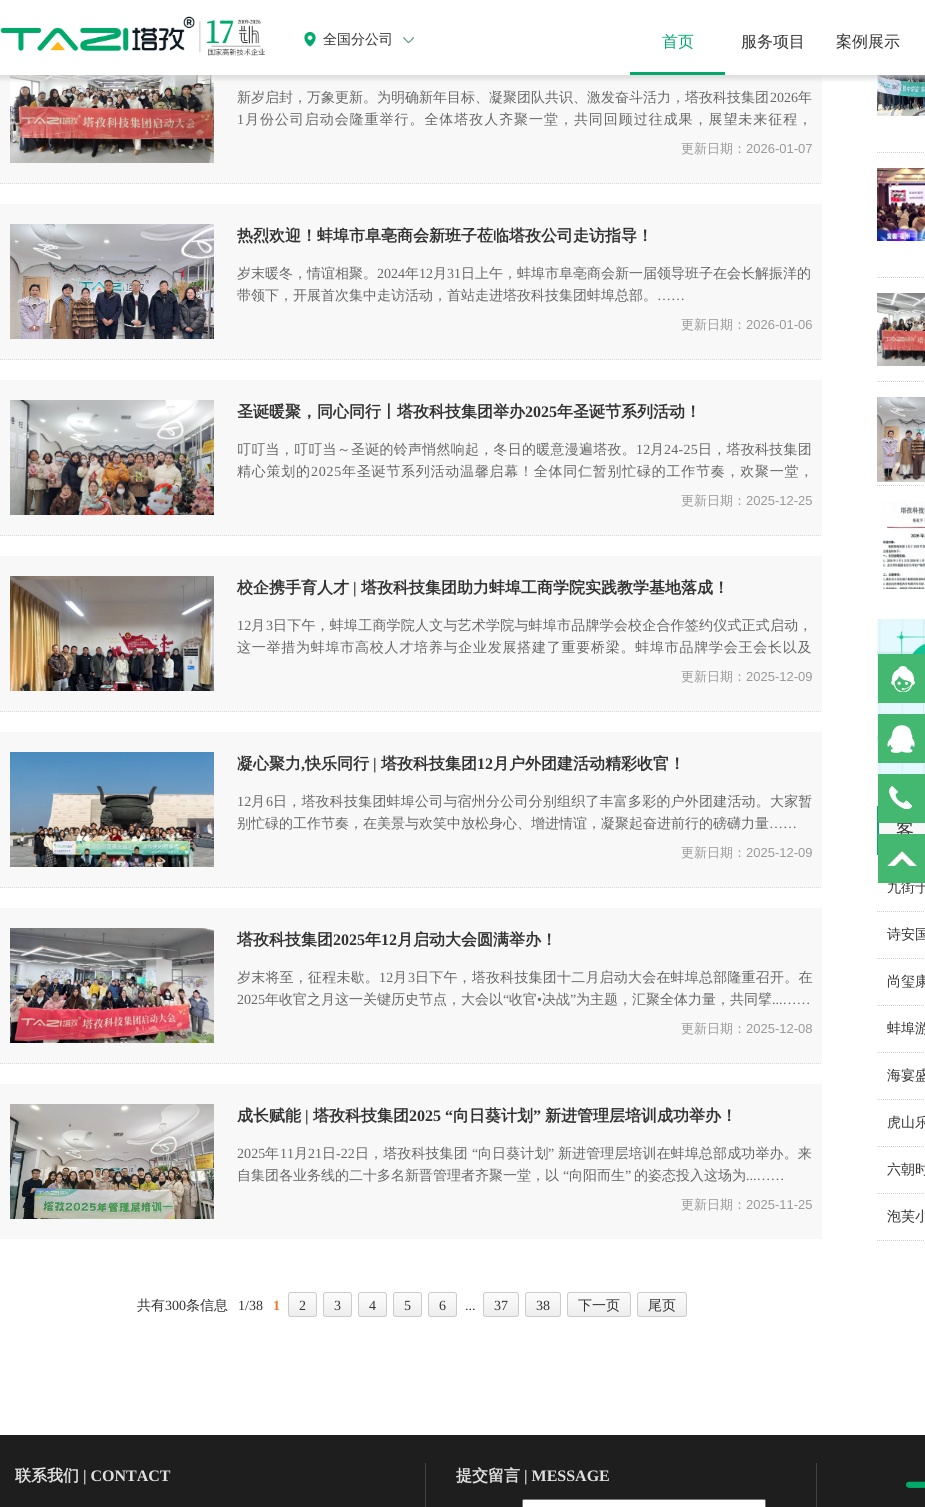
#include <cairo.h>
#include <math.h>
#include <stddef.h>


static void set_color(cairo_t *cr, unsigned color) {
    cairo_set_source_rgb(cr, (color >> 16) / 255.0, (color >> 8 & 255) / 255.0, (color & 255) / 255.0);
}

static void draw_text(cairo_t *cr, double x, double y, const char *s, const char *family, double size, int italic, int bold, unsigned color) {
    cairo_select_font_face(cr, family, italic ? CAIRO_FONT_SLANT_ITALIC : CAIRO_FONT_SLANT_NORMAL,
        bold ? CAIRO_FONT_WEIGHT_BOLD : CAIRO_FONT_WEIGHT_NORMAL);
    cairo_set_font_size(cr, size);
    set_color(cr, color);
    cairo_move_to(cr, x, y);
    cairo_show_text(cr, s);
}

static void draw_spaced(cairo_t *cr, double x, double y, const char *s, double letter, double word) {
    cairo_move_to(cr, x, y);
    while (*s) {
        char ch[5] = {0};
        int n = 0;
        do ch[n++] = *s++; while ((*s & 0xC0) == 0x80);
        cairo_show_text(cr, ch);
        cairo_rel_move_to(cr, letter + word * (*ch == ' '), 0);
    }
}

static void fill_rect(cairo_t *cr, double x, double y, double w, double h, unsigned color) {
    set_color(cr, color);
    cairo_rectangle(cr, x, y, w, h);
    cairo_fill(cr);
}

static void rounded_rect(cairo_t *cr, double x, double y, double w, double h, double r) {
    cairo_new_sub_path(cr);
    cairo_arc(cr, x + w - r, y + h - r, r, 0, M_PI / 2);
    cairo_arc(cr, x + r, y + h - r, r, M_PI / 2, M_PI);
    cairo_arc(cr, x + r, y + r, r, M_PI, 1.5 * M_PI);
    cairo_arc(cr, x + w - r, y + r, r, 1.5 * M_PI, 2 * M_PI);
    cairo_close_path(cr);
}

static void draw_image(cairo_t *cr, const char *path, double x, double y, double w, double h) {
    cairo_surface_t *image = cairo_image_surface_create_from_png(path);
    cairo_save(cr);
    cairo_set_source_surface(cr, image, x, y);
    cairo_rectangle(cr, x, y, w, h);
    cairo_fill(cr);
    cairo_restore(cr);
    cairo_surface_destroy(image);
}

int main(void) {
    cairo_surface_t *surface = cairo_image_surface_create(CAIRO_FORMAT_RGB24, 925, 1507);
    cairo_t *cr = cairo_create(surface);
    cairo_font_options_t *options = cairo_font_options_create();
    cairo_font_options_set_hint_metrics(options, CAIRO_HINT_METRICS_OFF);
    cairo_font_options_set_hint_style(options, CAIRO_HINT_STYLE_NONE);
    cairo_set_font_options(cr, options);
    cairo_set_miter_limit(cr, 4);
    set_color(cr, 0xFFFFFF);
    cairo_paint(cr);
    draw_image(cr, "assets/img1.png", 0, 16, 265, 40);
    draw_image(cr, "assets/img2.png", 304, 32, 110, 15);
    draw_text(cr, 323, 44, "全国分公司", "WenQuanYi Zen Hei Medium", 14, 0, 0, 0x333333);
    fill_rect(cr, 630, 72, 95, 3, 0x00A86A);
    draw_text(cr, 662, 47, "首页", "WenQuanYi Zen Hei Medium", 16, 0, 0, 0x00A86A);
    draw_text(cr, 741, 47, "服务项目", "WenQuanYi Zen Hei Medium", 16, 0, 0, 0x333333);
    draw_text(cr, 836, 47, "案例展示", "WenQuanYi Zen Hei Medium", 16, 0, 0, 0x333333);
    fill_rect(cr, 0, 75, 822, 109, 0xF8F8F8);
    draw_image(cr, "assets/img4.png", 10, 75, 204, 88);
    draw_image(cr, "assets/img15.png", 877, 75, 48, 41);
    draw_image(cr, "assets/img3.png", 0, 75, 925, 7);
    cairo_new_path(cr);
    cairo_move_to(cr, 0, 183.5);
    cairo_line_to(cr, 822, 183.5);
    set_color(cr, 0xDCDCDC);
    cairo_set_line_width(cr, 1);
    cairo_set_dash(cr, (double[]){1, 1}, 2, 0);
    cairo_stroke(cr);
    draw_text(cr, 237, 102, "新岁启封，万象更新。为明确新年目标、凝聚团队共识、激发奋斗活力，塔孜科技集团", "WenQuanYi Zen Hei Medium", 14, 0, 0, 0x666666);
    draw_text(cr, 770, 102, "2026", "Liberation Serif", 14, 0, 0, 0x666666);
    draw_text(cr, 798, 102, "年", "WenQuanYi Zen Hei Medium", 14, 0, 0, 0x666666);
    cairo_select_font_face(cr, "Liberation Serif", CAIRO_FONT_SLANT_NORMAL, CAIRO_FONT_WEIGHT_NORMAL);
    draw_spaced(cr, 237, 124, "1", 0.95, 0);
    cairo_select_font_face(cr, "WenQuanYi Zen Hei Medium", CAIRO_FONT_SLANT_NORMAL, CAIRO_FONT_WEIGHT_NORMAL);
    draw_spaced(cr, 245, 124, "月份公司启动会隆重举行。全体塔孜人齐聚一堂，共同回顾过往成果，展望未来征程，", 0.95, 0);
    draw_text(cr, 681, 153, "更新日期：", "WenQuanYi Zen Hei Medium", 13, 0, 0, 0x999999);
    draw_text(cr, 746, 153, "2026-01-07", "Liberation Sans", 13, 0, 0, 0x999999);
    fill_rect(cr, 0, 204, 822, 156, 0xF8F8F8);
    cairo_new_path(cr);
    cairo_move_to(cr, 0, 359.5);
    cairo_line_to(cr, 822, 359.5);
    set_color(cr, 0xDCDCDC);
    cairo_stroke(cr);
    draw_image(cr, "assets/img5.png", 10, 224, 204, 115);
    draw_text(cr, 237, 241, "热烈欢迎！蚌埠市阜亳商会新班子莅临塔孜公司走访指导！", "WenQuanYi Zen Hei", 16, 0, 1, 0x333333);
    draw_text(cr, 237, 278, "岁末暖冬，情谊相聚。", "WenQuanYi Zen Hei Medium", 14, 0, 0, 0x666666);
    draw_text(cr, 377, 278, "2024", "Liberation Serif", 14, 0, 0, 0x666666);
    draw_text(cr, 405, 278, "年", "WenQuanYi Zen Hei Medium", 14, 0, 0, 0x666666);
    draw_text(cr, 419, 278, "12", "Liberation Serif", 14, 0, 0, 0x666666);
    draw_text(cr, 433, 278, "月", "WenQuanYi Zen Hei Medium", 14, 0, 0, 0x666666);
    draw_text(cr, 447, 278, "31", "Liberation Serif", 14, 0, 0, 0x666666);
    draw_text(cr, 461, 278, "日上午，蚌埠市阜亳商会新一届领导班子在会长解振洋的", "WenQuanYi Zen Hei Medium", 14, 0, 0, 0x666666);
    draw_text(cr, 237, 300, "带领下，开展首次集中走访活动，首站走进塔孜科技集团蚌埠总部。", "WenQuanYi Zen Hei Medium", 14, 0, 0, 0x666666);
    draw_text(cr, 657, 300, "……", "Liberation Serif", 14, 0, 0, 0x666666);
    draw_text(cr, 681, 329, "更新日期：", "WenQuanYi Zen Hei Medium", 13, 0, 0, 0x999999);
    draw_text(cr, 746, 329, "2026-01-06", "Liberation Sans", 13, 0, 0, 0x999999);
    fill_rect(cr, 0, 380, 822, 156, 0xF8F8F8);
    cairo_new_path(cr);
    cairo_move_to(cr, 0, 535.5);
    cairo_line_to(cr, 822, 535.5);
    set_color(cr, 0xDCDCDC);
    cairo_stroke(cr);
    draw_image(cr, "assets/img6.png", 10, 400, 204, 115);
    draw_text(cr, 237, 417, "圣诞暖聚，同心同行丨塔孜科技集团举办", "WenQuanYi Zen Hei", 16, 0, 1, 0x333333);
    draw_text(cr, 525, 417, "2025", "Liberation Serif", 16, 0, 1, 0x333333);
    draw_text(cr, 557, 417, "年圣诞节系列活动！", "WenQuanYi Zen Hei", 16, 0, 1, 0x333333);
    cairo_select_font_face(cr, "WenQuanYi Zen Hei Medium", CAIRO_FONT_SLANT_NORMAL, CAIRO_FONT_WEIGHT_NORMAL);
    cairo_set_font_size(cr, 14);
    set_color(cr, 0x666666);
    draw_spaced(cr, 237, 454, "叮叮当，叮叮当～圣诞的铃声悄然响起，冬日的暖意漫遍塔孜。", 0.25, 0);
    cairo_select_font_face(cr, "Liberation Serif", CAIRO_FONT_SLANT_NORMAL, CAIRO_FONT_WEIGHT_NORMAL);
    draw_spaced(cr, 636, 454, "12", 0.25, 0);
    cairo_select_font_face(cr, "WenQuanYi Zen Hei Medium", CAIRO_FONT_SLANT_NORMAL, CAIRO_FONT_WEIGHT_NORMAL);
    draw_spaced(cr, 650, 454, "月", 0.25, 0);
    cairo_select_font_face(cr, "Liberation Serif", CAIRO_FONT_SLANT_NORMAL, CAIRO_FONT_WEIGHT_NORMAL);
    draw_spaced(cr, 664, 454, "24-25", 0.25, 0);
    cairo_select_font_face(cr, "WenQuanYi Zen Hei Medium", CAIRO_FONT_SLANT_NORMAL, CAIRO_FONT_WEIGHT_NORMAL);
    draw_spaced(cr, 698, 454, "日，塔孜科技集团", 0.25, 0);
    draw_spaced(cr, 237, 476, "精心策划的", 0.75, 0);
    cairo_select_font_face(cr, "Liberation Serif", CAIRO_FONT_SLANT_NORMAL, CAIRO_FONT_WEIGHT_NORMAL);
    draw_spaced(cr, 311, 476, "2025", 0.75, 0);
    cairo_select_font_face(cr, "WenQuanYi Zen Hei Medium", CAIRO_FONT_SLANT_NORMAL, CAIRO_FONT_WEIGHT_NORMAL);
    draw_spaced(cr, 342, 476, "年圣诞节系列活动温馨启幕！全体同仁暂别忙碌的工作节奏，欢聚一堂，", 0.75, 0);
    draw_text(cr, 681, 505, "更新日期：", "WenQuanYi Zen Hei Medium", 13, 0, 0, 0x999999);
    draw_text(cr, 746, 505, "2025-12-25", "Liberation Sans", 13, 0, 0, 0x999999);
    fill_rect(cr, 0, 556, 822, 156, 0xF8F8F8);
    cairo_new_path(cr);
    cairo_move_to(cr, 0, 711.5);
    cairo_line_to(cr, 822, 711.5);
    set_color(cr, 0xDCDCDC);
    cairo_stroke(cr);
    draw_image(cr, "assets/img7.png", 10, 576, 204, 115);
    draw_text(cr, 237, 593, "校企携手育人才", "WenQuanYi Zen Hei", 16, 0, 1, 0x333333);
    draw_text(cr, 353, 593, "|", "Liberation Serif", 16, 0, 1, 0x333333);
    draw_text(cr, 361, 593, "塔孜科技集团助力蚌埠工商学院实践教学基地落成！", "WenQuanYi Zen Hei", 16, 0, 1, 0x333333);
    cairo_select_font_face(cr, "Liberation Serif", CAIRO_FONT_SLANT_NORMAL, CAIRO_FONT_WEIGHT_NORMAL);
    cairo_set_font_size(cr, 14);
    set_color(cr, 0x666666);
    draw_spaced(cr, 237, 630, "12", 0.2, 0);
    cairo_select_font_face(cr, "WenQuanYi Zen Hei Medium", CAIRO_FONT_SLANT_NORMAL, CAIRO_FONT_WEIGHT_NORMAL);
    draw_spaced(cr, 251, 630, "月", 0.2, 0);
    cairo_select_font_face(cr, "Liberation Serif", CAIRO_FONT_SLANT_NORMAL, CAIRO_FONT_WEIGHT_NORMAL);
    draw_spaced(cr, 266, 630, "3", 0.2, 0);
    cairo_select_font_face(cr, "WenQuanYi Zen Hei Medium", CAIRO_FONT_SLANT_NORMAL, CAIRO_FONT_WEIGHT_NORMAL);
    draw_spaced(cr, 273, 630, "日下午，蚌埠工商学院人文与艺术学院与蚌埠市品牌学会校企合作签约仪式正式启动，", 0.2, 0);
    draw_spaced(cr, 237, 652, "这一举措为蚌埠市高校人才培养与企业发展搭建了重要桥梁。蚌埠市品牌学会王会长以及", 0.75, 0);
    draw_text(cr, 681, 681, "更新日期：", "WenQuanYi Zen Hei Medium", 13, 0, 0, 0x999999);
    draw_text(cr, 746, 681, "2025-12-09", "Liberation Sans", 13, 0, 0, 0x999999);
    fill_rect(cr, 0, 732, 822, 156, 0xF8F8F8);
    cairo_new_path(cr);
    cairo_move_to(cr, 0, 887.5);
    cairo_line_to(cr, 822, 887.5);
    set_color(cr, 0xDCDCDC);
    cairo_stroke(cr);
    draw_image(cr, "assets/img8.png", 10, 752, 204, 115);
    draw_text(cr, 237, 769, "凝心聚力", "WenQuanYi Zen Hei", 16, 0, 1, 0x333333);
    draw_text(cr, 301, 769, ",", "Liberation Serif", 16, 0, 1, 0x333333);
    draw_text(cr, 305, 769, "快乐同行", "WenQuanYi Zen Hei", 16, 0, 1, 0x333333);
    draw_text(cr, 373, 769, "|", "Liberation Serif", 16, 0, 1, 0x333333);
    draw_text(cr, 381, 769, "塔孜科技集团", "WenQuanYi Zen Hei", 16, 0, 1, 0x333333);
    draw_text(cr, 477, 769, "12", "Liberation Serif", 16, 0, 1, 0x333333);
    draw_text(cr, 493, 769, "月户外团建活动精彩收官！", "WenQuanYi Zen Hei", 16, 0, 1, 0x333333);
    cairo_select_font_face(cr, "Liberation Serif", CAIRO_FONT_SLANT_NORMAL, CAIRO_FONT_WEIGHT_NORMAL);
    cairo_set_font_size(cr, 14);
    set_color(cr, 0x666666);
    draw_spaced(cr, 237, 806, "12", 0.2, 0);
    cairo_select_font_face(cr, "WenQuanYi Zen Hei Medium", CAIRO_FONT_SLANT_NORMAL, CAIRO_FONT_WEIGHT_NORMAL);
    draw_spaced(cr, 251, 806, "月", 0.2, 0);
    cairo_select_font_face(cr, "Liberation Serif", CAIRO_FONT_SLANT_NORMAL, CAIRO_FONT_WEIGHT_NORMAL);
    draw_spaced(cr, 266, 806, "6", 0.2, 0);
    cairo_select_font_face(cr, "WenQuanYi Zen Hei Medium", CAIRO_FONT_SLANT_NORMAL, CAIRO_FONT_WEIGHT_NORMAL);
    draw_spaced(cr, 273, 806, "日，塔孜科技集团蚌埠公司与宿州分公司分别组织了丰富多彩的户外团建活动。大家暂", 0.2, 0);
    draw_text(cr, 237, 828, "别忙碌的工作节奏，在美景与欢笑中放松身心、增进情谊，凝聚起奋进前行的磅礴力量", "WenQuanYi Zen Hei Medium", 14, 0, 0, 0x666666);
    draw_text(cr, 769, 828, "……", "Liberation Serif", 14, 0, 0, 0x666666);
    draw_text(cr, 681, 857, "更新日期：", "WenQuanYi Zen Hei Medium", 13, 0, 0, 0x999999);
    draw_text(cr, 746, 857, "2025-12-09", "Liberation Sans", 13, 0, 0, 0x999999);
    fill_rect(cr, 0, 908, 822, 156, 0xF8F8F8);
    cairo_new_path(cr);
    cairo_move_to(cr, 0, 1063.5);
    cairo_line_to(cr, 822, 1063.5);
    set_color(cr, 0xDCDCDC);
    cairo_stroke(cr);
    draw_image(cr, "assets/img9.png", 10, 928, 204, 115);
    draw_text(cr, 237, 945, "塔孜科技集团", "WenQuanYi Zen Hei", 16, 0, 1, 0x333333);
    draw_text(cr, 333, 945, "2025", "Liberation Serif", 16, 0, 1, 0x333333);
    draw_text(cr, 365, 945, "年", "WenQuanYi Zen Hei", 16, 0, 1, 0x333333);
    draw_text(cr, 381, 945, "12", "Liberation Serif", 16, 0, 1, 0x333333);
    draw_text(cr, 397, 945, "月启动大会圆满举办！", "WenQuanYi Zen Hei", 16, 0, 1, 0x333333);
    cairo_select_font_face(cr, "WenQuanYi Zen Hei Medium", CAIRO_FONT_SLANT_NORMAL, CAIRO_FONT_WEIGHT_NORMAL);
    cairo_set_font_size(cr, 14);
    set_color(cr, 0x666666);
    draw_spaced(cr, 237, 982, "岁末将至，征程未歇。", 0.2, 0);
    cairo_select_font_face(cr, "Liberation Serif", CAIRO_FONT_SLANT_NORMAL, CAIRO_FONT_WEIGHT_NORMAL);
    draw_spaced(cr, 379, 982, "12", 0.2, 0);
    cairo_select_font_face(cr, "WenQuanYi Zen Hei Medium", CAIRO_FONT_SLANT_NORMAL, CAIRO_FONT_WEIGHT_NORMAL);
    draw_spaced(cr, 393, 982, "月", 0.2, 0);
    cairo_select_font_face(cr, "Liberation Serif", CAIRO_FONT_SLANT_NORMAL, CAIRO_FONT_WEIGHT_NORMAL);
    draw_spaced(cr, 408, 982, "3", 0.2, 0);
    cairo_select_font_face(cr, "WenQuanYi Zen Hei Medium", CAIRO_FONT_SLANT_NORMAL, CAIRO_FONT_WEIGHT_NORMAL);
    draw_spaced(cr, 415, 982, "日下午，塔孜科技集团十二月启动大会在蚌埠总部隆重召开。在", 0.2, 0);
    draw_text(cr, 237, 1004, "2025", "Liberation Serif", 14, 0, 0, 0x666666);
    draw_text(cr, 265, 1004, "年收官之月这一关键历史节点，大会以", "WenQuanYi Zen Hei Medium", 14, 0, 0, 0x666666);
    draw_text(cr, 503, 1004, "“", "Liberation Serif", 14, 0, 0, 0x666666);
    draw_text(cr, 509, 1004, "收官", "WenQuanYi Zen Hei Medium", 14, 0, 0, 0x666666);
    draw_text(cr, 537, 1004, "•", "Liberation Serif", 14, 0, 0, 0x666666);
    draw_text(cr, 542, 1004, "决战", "WenQuanYi Zen Hei Medium", 14, 0, 0, 0x666666);
    draw_text(cr, 570, 1004, "”", "Liberation Serif", 14, 0, 0, 0x666666);
    draw_text(cr, 576, 1004, "为主题，汇聚全体力量，共同擘", "WenQuanYi Zen Hei Medium", 14, 0, 0, 0x666666);
    draw_text(cr, 772, 1004, "...……", "Liberation Serif", 14, 0, 0, 0x666666);
    draw_text(cr, 681, 1033, "更新日期：", "WenQuanYi Zen Hei Medium", 13, 0, 0, 0x999999);
    draw_text(cr, 746, 1033, "2025-12-08", "Liberation Sans", 13, 0, 0, 0x999999);
    fill_rect(cr, 0, 1084, 822, 155, 0xF8F8F8);
    draw_image(cr, "assets/img10.png", 10, 1104, 204, 115);
    draw_text(cr, 237, 1121, "成长赋能", "WenQuanYi Zen Hei", 16, 0, 1, 0x333333);
    draw_text(cr, 305, 1121, "|", "Liberation Serif", 16, 0, 1, 0x333333);
    draw_text(cr, 313, 1121, "塔孜科技集团", "WenQuanYi Zen Hei", 16, 0, 1, 0x333333);
    draw_text(cr, 409, 1121, "2025 “", "Liberation Serif", 16, 0, 1, 0x333333);
    draw_text(cr, 453, 1121, "向日葵计划", "WenQuanYi Zen Hei", 16, 0, 1, 0x333333);
    draw_text(cr, 533, 1121, "”", "Liberation Serif", 16, 0, 1, 0x333333);
    draw_text(cr, 545, 1121, "新进管理层培训成功举办！", "WenQuanYi Zen Hei", 16, 0, 1, 0x333333);
    cairo_select_font_face(cr, "Liberation Serif", CAIRO_FONT_SLANT_NORMAL, CAIRO_FONT_WEIGHT_NORMAL);
    cairo_set_font_size(cr, 14);
    set_color(cr, 0x666666);
    draw_spaced(cr, 237, 1158, "2025", 0.1, 0);
    cairo_select_font_face(cr, "WenQuanYi Zen Hei Medium", CAIRO_FONT_SLANT_NORMAL, CAIRO_FONT_WEIGHT_NORMAL);
    draw_spaced(cr, 265, 1158, "年", 0.1, 0);
    cairo_select_font_face(cr, "Liberation Serif", CAIRO_FONT_SLANT_NORMAL, CAIRO_FONT_WEIGHT_NORMAL);
    draw_spaced(cr, 280, 1158, "11", 0.1, 0);
    cairo_select_font_face(cr, "WenQuanYi Zen Hei Medium", CAIRO_FONT_SLANT_NORMAL, CAIRO_FONT_WEIGHT_NORMAL);
    draw_spaced(cr, 294, 1158, "月", 0.1, 0);
    cairo_select_font_face(cr, "Liberation Serif", CAIRO_FONT_SLANT_NORMAL, CAIRO_FONT_WEIGHT_NORMAL);
    draw_spaced(cr, 308, 1158, "21", 0.1, 0);
    cairo_select_font_face(cr, "WenQuanYi Zen Hei Medium", CAIRO_FONT_SLANT_NORMAL, CAIRO_FONT_WEIGHT_NORMAL);
    draw_spaced(cr, 322, 1158, "日", 0.1, 0);
    cairo_select_font_face(cr, "Liberation Serif", CAIRO_FONT_SLANT_NORMAL, CAIRO_FONT_WEIGHT_NORMAL);
    draw_spaced(cr, 336, 1158, "-22", 0.1, 0);
    cairo_select_font_face(cr, "WenQuanYi Zen Hei Medium", CAIRO_FONT_SLANT_NORMAL, CAIRO_FONT_WEIGHT_NORMAL);
    draw_spaced(cr, 355, 1158, "日，塔孜科技集团", 0.1, 0);
    cairo_select_font_face(cr, "Liberation Serif", CAIRO_FONT_SLANT_NORMAL, CAIRO_FONT_WEIGHT_NORMAL);
    draw_spaced(cr, 472, 1158, "“", 0.1, 0);
    cairo_select_font_face(cr, "WenQuanYi Zen Hei Medium", CAIRO_FONT_SLANT_NORMAL, CAIRO_FONT_WEIGHT_NORMAL);
    draw_spaced(cr, 478, 1158, "向日葵计划", 0.1, 0);
    cairo_select_font_face(cr, "Liberation Serif", CAIRO_FONT_SLANT_NORMAL, CAIRO_FONT_WEIGHT_NORMAL);
    draw_spaced(cr, 548, 1158, "”", 0.1, 0);
    cairo_select_font_face(cr, "WenQuanYi Zen Hei Medium", CAIRO_FONT_SLANT_NORMAL, CAIRO_FONT_WEIGHT_NORMAL);
    draw_spaced(cr, 558, 1158, "新进管理层培训在蚌埠总部成功举办。来", 0.1, 0);
    draw_text(cr, 237, 1180, "自集团各业务线的二十多名新晋管理者齐聚一堂，以", "WenQuanYi Zen Hei Medium", 14, 0, 0, 0x666666);
    draw_text(cr, 563, 1180, "“", "Liberation Serif", 14, 0, 0, 0x666666);
    draw_text(cr, 569, 1180, "向阳而生", "WenQuanYi Zen Hei Medium", 14, 0, 0, 0x666666);
    draw_text(cr, 625, 1180, "”", "Liberation Serif", 14, 0, 0, 0x666666);
    draw_text(cr, 634, 1180, "的姿态投入这场为", "WenQuanYi Zen Hei Medium", 14, 0, 0, 0x666666);
    draw_text(cr, 746, 1180, "...……", "Liberation Serif", 14, 0, 0, 0x666666);
    draw_text(cr, 681, 1209, "更新日期：", "WenQuanYi Zen Hei Medium", 13, 0, 0, 0x999999);
    draw_text(cr, 746, 1209, "2025-11-25", "Liberation Sans", 13, 0, 0, 0x999999);
    draw_text(cr, 137, 1310, "共有", "WenQuanYi Zen Hei Medium", 14, 0, 0, 0x333333);
    draw_text(cr, 165, 1310, "300", "Liberation Serif", 14, 0, 0, 0x333333);
    draw_text(cr, 186, 1310, "条信息", "WenQuanYi Zen Hei Medium", 14, 0, 0, 0x333333);
    draw_text(cr, 238, 1310, "1/38", "Liberation Serif", 14, 0, 0, 0x333333);
    draw_text(cr, 273, 1310, "1", "Liberation Serif", 14, 0, 1, 0xF3782A);
    draw_image(cr, "assets/img11.png", 288, 1293, 29, 24);
    rounded_rect(cr, 288.5, 1292.5, 28, 24, 2.5);
    set_color(cr, 0xCCCCCC);
    cairo_set_dash(cr, NULL, 0, 0);
    cairo_stroke(cr);
    draw_text(cr, 299, 1310, "2", "Liberation Serif", 14, 0, 0, 0x333333);
    draw_image(cr, "assets/img11.png", 323, 1293, 29, 24);
    rounded_rect(cr, 323.5, 1292.5, 28, 24, 2.5);
    set_color(cr, 0xCCCCCC);
    cairo_stroke(cr);
    draw_text(cr, 334, 1310, "3", "Liberation Serif", 14, 0, 0, 0x333333);
    draw_image(cr, "assets/img11.png", 358, 1293, 29, 24);
    rounded_rect(cr, 358.5, 1292.5, 28, 24, 2.5);
    set_color(cr, 0xCCCCCC);
    cairo_stroke(cr);
    draw_text(cr, 369, 1310, "4", "Liberation Serif", 14, 0, 0, 0x333333);
    draw_image(cr, "assets/img11.png", 393, 1293, 29, 24);
    rounded_rect(cr, 393.5, 1292.5, 28, 24, 2.5);
    set_color(cr, 0xCCCCCC);
    cairo_stroke(cr);
    draw_text(cr, 404, 1310, "5", "Liberation Serif", 14, 0, 0, 0x333333);
    draw_image(cr, "assets/img11.png", 428, 1293, 29, 24);
    rounded_rect(cr, 428.5, 1292.5, 28, 24, 2.5);
    set_color(cr, 0xCCCCCC);
    cairo_stroke(cr);
    draw_text(cr, 439, 1310, "6", "Liberation Serif", 14, 0, 0, 0x333333);
    draw_text(cr, 465, 1310, "...", "Liberation Serif", 14, 0, 0, 0x333333);
    draw_image(cr, "assets/img12.png", 483, 1293, 36, 24);
    rounded_rect(cr, 483.5, 1292.5, 35, 24, 2.5);
    set_color(cr, 0xCCCCCC);
    cairo_stroke(cr);
    draw_text(cr, 494, 1310, "37", "Liberation Serif", 14, 0, 0, 0x333333);
    draw_image(cr, "assets/img12.png", 525, 1293, 36, 24);
    rounded_rect(cr, 525.5, 1292.5, 35, 24, 2.5);
    set_color(cr, 0xCCCCCC);
    cairo_stroke(cr);
    draw_text(cr, 536, 1310, "38", "Liberation Serif", 14, 0, 0, 0x333333);
    draw_image(cr, "assets/img13.png", 567, 1293, 64, 24);
    rounded_rect(cr, 567.5, 1292.5, 63, 24, 2.5);
    set_color(cr, 0xCCCCCC);
    cairo_stroke(cr);
    draw_text(cr, 578, 1310, "下一页", "WenQuanYi Zen Hei Medium", 14, 0, 0, 0x333333);
    draw_image(cr, "assets/img14.png", 637, 1293, 50, 24);
    rounded_rect(cr, 637.5, 1292.5, 49, 24, 2.5);
    set_color(cr, 0xCCCCCC);
    cairo_stroke(cr);
    draw_text(cr, 648, 1310, "尾页", "WenQuanYi Zen Hei Medium", 14, 0, 0, 0x333333);
    cairo_new_path(cr);
    cairo_move_to(cr, 877, 152.5);
    cairo_line_to(cr, 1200, 152.5);
    set_color(cr, 0xD0D0D0);
    cairo_set_dash(cr, (double[]){1, 1}, 2, 0);
    cairo_stroke(cr);
    cairo_new_path(cr);
    cairo_move_to(cr, 877, 277.5);
    cairo_line_to(cr, 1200, 277.5);
    cairo_stroke(cr);
    draw_image(cr, "assets/img16.png", 877, 168, 48, 73);
    cairo_new_path(cr);
    cairo_move_to(cr, 877, 381.5);
    cairo_line_to(cr, 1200, 381.5);
    cairo_stroke(cr);
    draw_image(cr, "assets/img17.png", 877, 293, 48, 73);
    cairo_new_path(cr);
    cairo_move_to(cr, 877, 485.5);
    cairo_line_to(cr, 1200, 485.5);
    cairo_stroke(cr);
    draw_image(cr, "assets/img18.png", 877, 397, 48, 85);
    draw_image(cr, "assets/img19.png", 882, 501, 43, 88);
    draw_image(cr, "assets/img20.png", 877, 619, 48, 157);
    fill_rect(cr, 879, 823, 46, 32, 0xF8F8F8);
    fill_rect(cr, 877, 806, 2, 49, 0x10A56F);
    draw_text(cr, 896, 836, "客", "WenQuanYi Zen Hei Medium", 18, 0, 0, 0x333333);
    cairo_new_path(cr);
    cairo_move_to(cr, 877, 911.5);
    cairo_line_to(cr, 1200, 911.5);
    cairo_move_to(cr, 877, 958.5);
    cairo_line_to(cr, 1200, 958.5);
    set_color(cr, 0xD0D0D0);
    cairo_stroke(cr);
    draw_text(cr, 887, 892, "九街于", "WenQuanYi Zen Hei Medium", 14, 0, 0, 0x333333);
    draw_text(cr, 887, 939, "诗安国", "WenQuanYi Zen Hei Medium", 14, 0, 0, 0x333333);
    cairo_new_path(cr);
    cairo_move_to(cr, 877, 1005.5);
    cairo_line_to(cr, 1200, 1005.5);
    cairo_move_to(cr, 877, 1052.5);
    cairo_line_to(cr, 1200, 1052.5);
    set_color(cr, 0xD0D0D0);
    cairo_stroke(cr);
    draw_text(cr, 887, 986, "尚玺康", "WenQuanYi Zen Hei Medium", 14, 0, 0, 0x333333);
    draw_text(cr, 887, 1033, "蚌埠游", "WenQuanYi Zen Hei Medium", 14, 0, 0, 0x333333);
    cairo_new_path(cr);
    cairo_move_to(cr, 877, 1099.5);
    cairo_line_to(cr, 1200, 1099.5);
    cairo_move_to(cr, 877, 1146.5);
    cairo_line_to(cr, 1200, 1146.5);
    set_color(cr, 0xD0D0D0);
    cairo_stroke(cr);
    draw_text(cr, 887, 1080, "海宴盛", "WenQuanYi Zen Hei Medium", 14, 0, 0, 0x333333);
    draw_text(cr, 887, 1127, "虎山乐", "WenQuanYi Zen Hei Medium", 14, 0, 0, 0x333333);
    cairo_new_path(cr);
    cairo_move_to(cr, 877, 1193.5);
    cairo_line_to(cr, 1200, 1193.5);
    cairo_move_to(cr, 877, 1240.5);
    cairo_line_to(cr, 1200, 1240.5);
    set_color(cr, 0xD0D0D0);
    cairo_stroke(cr);
    draw_text(cr, 887, 1174, "六朝时", "WenQuanYi Zen Hei Medium", 14, 0, 0, 0x333333);
    draw_text(cr, 887, 1221, "泡芙小", "WenQuanYi Zen Hei Medium", 14, 0, 0, 0x333333);
    draw_image(cr, "assets/img21.png", 878, 654, 47, 49);
    draw_image(cr, "assets/img22.png", 878, 714, 47, 49);
    draw_image(cr, "assets/img23.png", 878, 774, 47, 49);
    draw_image(cr, "assets/img24.png", 878, 834, 47, 49);
    fill_rect(cr, 0, 1435, 925, 72, 0x1E1E1E);
    draw_text(cr, 15, 1481, "联系我们", "WenQuanYi Zen Hei", 16, 0, 1, 0xE0E0E0);
    draw_text(cr, 83, 1481, "| CONTACT", "Liberation Serif", 16, 0, 1, 0xE0E0E0);
    fill_rect(cr, 816, 1463, 1, 44, 0x434343);
    fill_rect(cr, 425, 1463, 1, 44, 0x434343);
    draw_text(cr, 456, 1481, "提交留言", "WenQuanYi Zen Hei", 16, 0, 1, 0xE0E0E0);
    draw_text(cr, 524, 1481, "| MESSAGE", "Liberation Serif", 16, 0, 1, 0xE0E0E0);
    set_color(cr, 0xFFFFFF);
    rounded_rect(cr, 522.5, 1499.5, 243, 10, 1.5);
    cairo_fill_preserve(cr);
    set_color(cr, 0x767676);
    cairo_set_dash(cr, NULL, 0, 0);
    cairo_stroke(cr);
    draw_image(cr, "assets/img25.png", 906, 1481, 19, 7);
    cairo_surface_write_to_png(surface, "output.png");
    cairo_font_options_destroy(options);
    cairo_destroy(cr);
    cairo_surface_destroy(surface);
    return 0;
}
